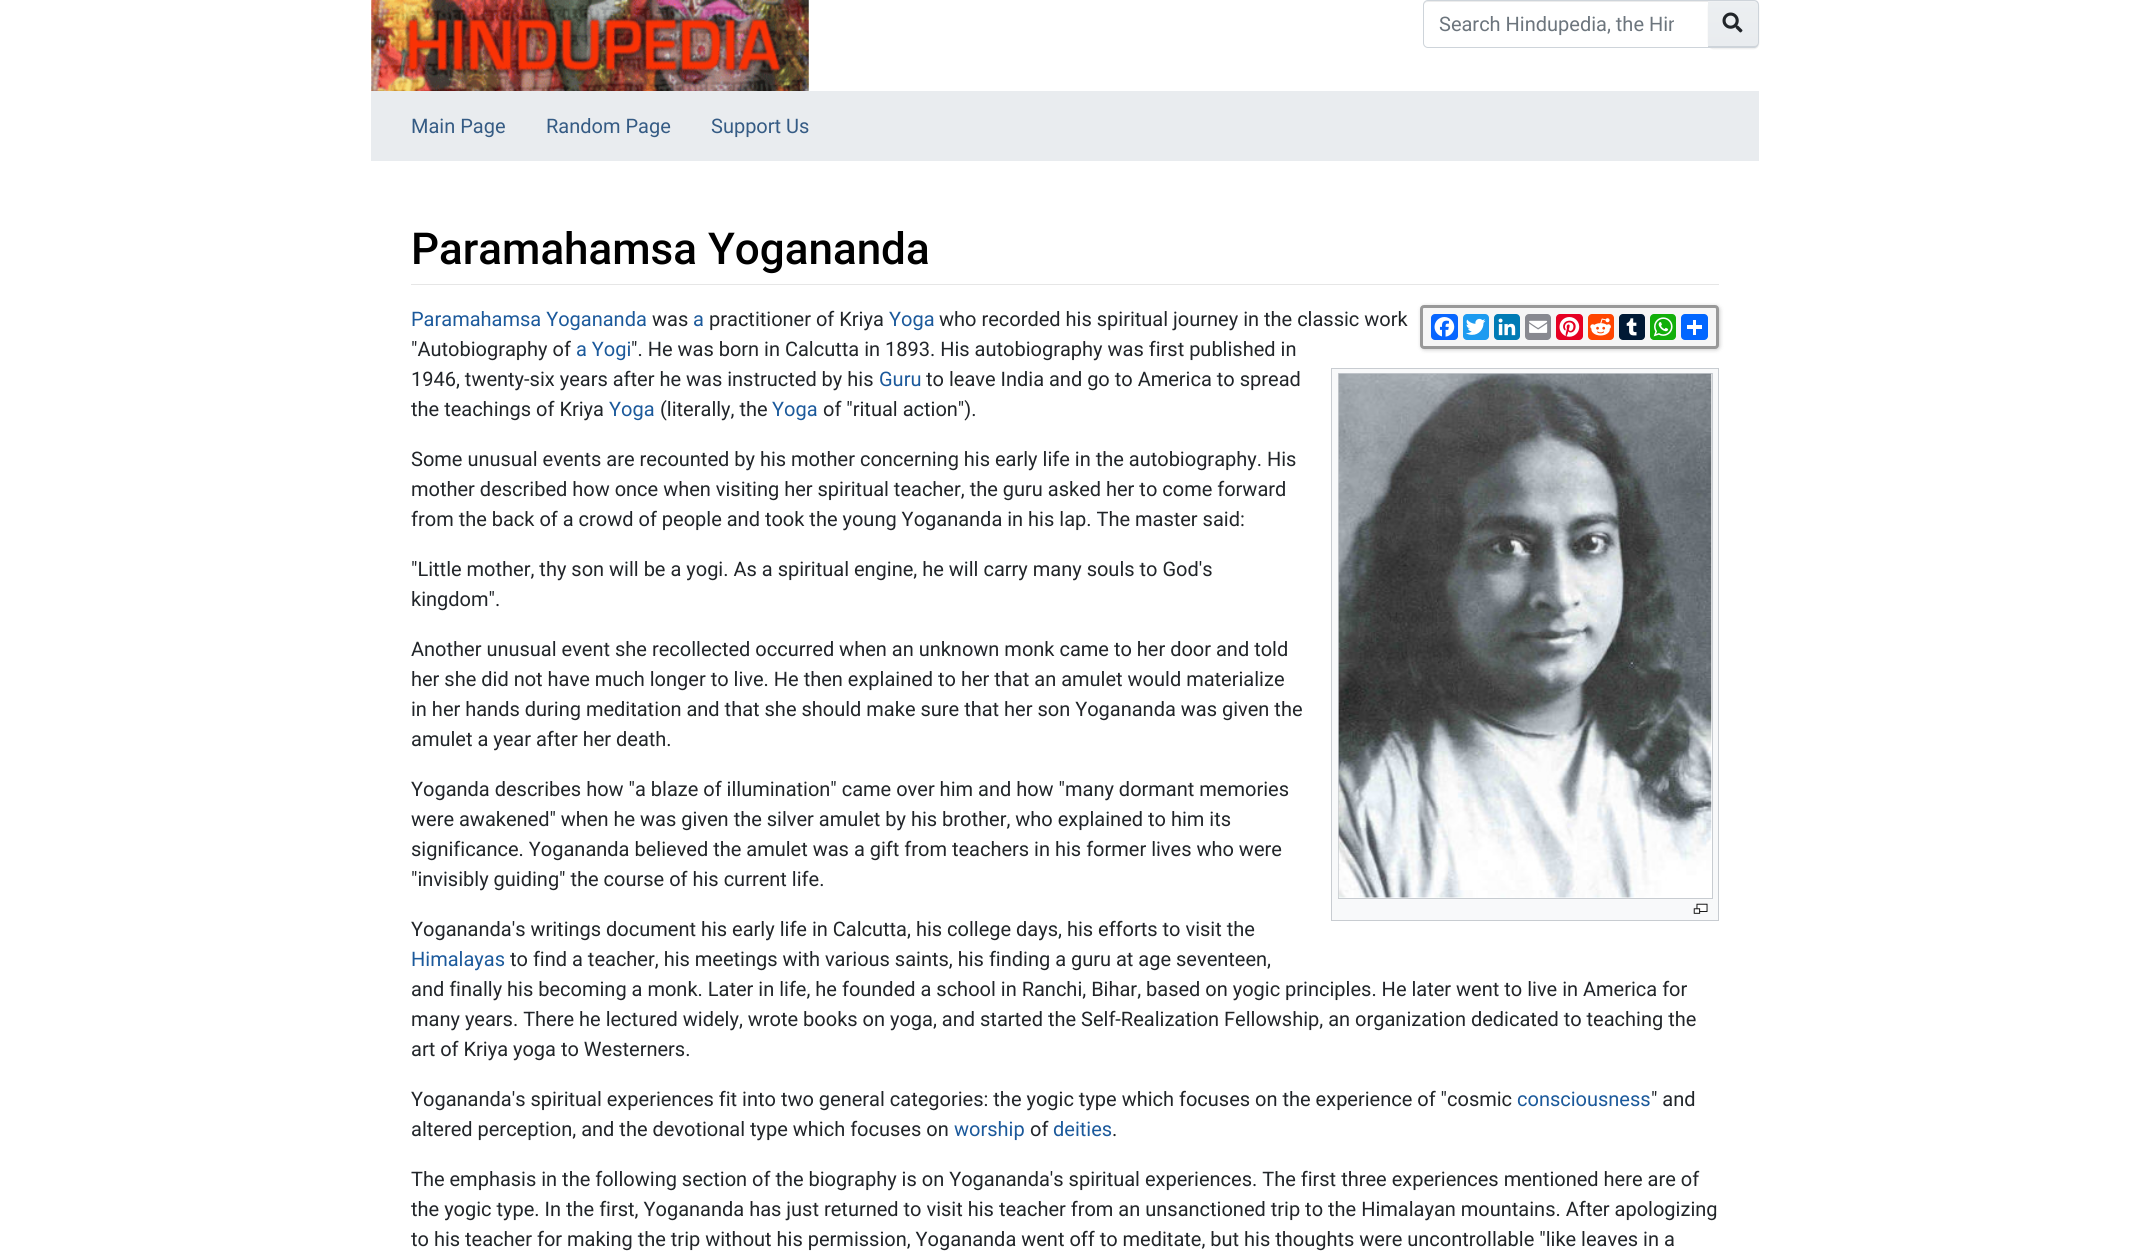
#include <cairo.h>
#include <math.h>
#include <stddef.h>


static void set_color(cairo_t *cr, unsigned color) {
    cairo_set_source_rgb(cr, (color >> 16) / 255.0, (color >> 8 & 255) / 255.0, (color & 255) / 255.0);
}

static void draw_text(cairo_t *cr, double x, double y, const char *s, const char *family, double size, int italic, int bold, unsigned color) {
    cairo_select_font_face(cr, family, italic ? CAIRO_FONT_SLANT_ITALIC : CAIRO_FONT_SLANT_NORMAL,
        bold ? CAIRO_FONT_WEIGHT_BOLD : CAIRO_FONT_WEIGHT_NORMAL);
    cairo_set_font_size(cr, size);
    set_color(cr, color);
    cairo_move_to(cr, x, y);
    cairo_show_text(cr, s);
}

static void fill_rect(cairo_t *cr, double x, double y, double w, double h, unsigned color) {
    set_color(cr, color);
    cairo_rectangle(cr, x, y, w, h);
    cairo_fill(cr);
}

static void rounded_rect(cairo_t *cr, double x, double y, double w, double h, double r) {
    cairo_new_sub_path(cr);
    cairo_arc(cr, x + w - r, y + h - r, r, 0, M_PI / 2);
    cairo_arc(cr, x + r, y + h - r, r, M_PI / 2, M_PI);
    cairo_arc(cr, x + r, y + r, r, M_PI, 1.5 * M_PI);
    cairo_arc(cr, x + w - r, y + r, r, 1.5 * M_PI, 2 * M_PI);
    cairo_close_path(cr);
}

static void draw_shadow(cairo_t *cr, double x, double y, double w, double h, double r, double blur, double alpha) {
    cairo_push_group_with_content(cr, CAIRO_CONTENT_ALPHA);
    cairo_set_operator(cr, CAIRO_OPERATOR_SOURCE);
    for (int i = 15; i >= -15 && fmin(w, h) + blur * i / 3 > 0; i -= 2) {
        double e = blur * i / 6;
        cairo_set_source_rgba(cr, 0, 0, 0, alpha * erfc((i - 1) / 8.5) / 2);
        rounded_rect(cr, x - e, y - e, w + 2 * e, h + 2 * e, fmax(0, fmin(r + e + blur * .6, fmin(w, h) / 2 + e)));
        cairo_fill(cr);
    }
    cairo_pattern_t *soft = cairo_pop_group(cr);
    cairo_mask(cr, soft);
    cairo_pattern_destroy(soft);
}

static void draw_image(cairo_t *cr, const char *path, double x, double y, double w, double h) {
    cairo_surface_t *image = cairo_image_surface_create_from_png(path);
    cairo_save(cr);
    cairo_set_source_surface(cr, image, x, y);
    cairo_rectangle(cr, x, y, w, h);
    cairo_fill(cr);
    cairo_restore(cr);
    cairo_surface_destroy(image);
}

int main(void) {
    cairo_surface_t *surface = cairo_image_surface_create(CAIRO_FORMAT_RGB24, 2130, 1258);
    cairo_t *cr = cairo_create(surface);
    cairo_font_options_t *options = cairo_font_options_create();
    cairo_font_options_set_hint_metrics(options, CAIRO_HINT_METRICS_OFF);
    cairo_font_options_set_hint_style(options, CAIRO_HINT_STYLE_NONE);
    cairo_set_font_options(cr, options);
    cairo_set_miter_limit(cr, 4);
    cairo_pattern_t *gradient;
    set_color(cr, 0xFFFFFF);
    cairo_paint(cr);
    draw_image(cr, "assets/img1.png", 371, 0, 438, 91);
    set_color(cr, 0xECECEC);
    cairo_new_path(cr);
    cairo_move_to(cr, 1428, 2);
    cairo_line_to(cr, 1708, 2);
    cairo_line_to(cr, 1708, 1);
    cairo_line_to(cr, 1428, 1);
    cairo_curve_to(cr, 1425, 1, 1424, 3, 1424, 6);
    cairo_curve_to(cr, 1424, 4, 1425, 2, 1428, 2);
    cairo_close_path(cr);
    cairo_fill(cr);
    cairo_new_path(cr);
    cairo_move_to(cr, 1428, 0.5);
    cairo_line_to(cr, 1708.5, 0.5);
    cairo_line_to(cr, 1708.5, 47.5);
    cairo_line_to(cr, 1428, 47.5);
    cairo_curve_to(cr, 1425.5, 47.5, 1423.5, 45.5, 1423.5, 43);
    cairo_line_to(cr, 1423.5, 5);
    cairo_curve_to(cr, 1423.5, 2.5, 1425.5, 0.5, 1428, 0.5);
    cairo_close_path(cr);
    set_color(cr, 0xCED4DA);
    cairo_set_line_width(cr, 1);
    cairo_stroke(cr);
    cairo_save(cr);
    cairo_rectangle(cr, 1439, 13, 235, 23);
    cairo_clip(cr);
    draw_text(cr, 1439, 31, "Search Hindupedia, the Hin", "Roboto", 20, 0, 0, 0x6C757D);
    cairo_restore(cr);
    set_color(cr, 0x000000);
    draw_shadow(cr, 1708, 1, 51, 48, 5, 0.5, 0.07);
    gradient = cairo_pattern_create_linear(1733, 1.2, 1733, 46);
    cairo_pattern_add_color_stop_rgba(gradient, 0, 0.925, 0.937, 0.945, 1);
    cairo_pattern_add_color_stop_rgba(gradient, 1, 0.914, 0.925, 0.937, 1);
    cairo_set_source(cr, gradient);
    cairo_pattern_destroy(gradient);
    cairo_new_path(cr);
    cairo_move_to(cr, 1708, 1);
    cairo_line_to(cr, 1754, 1);
    cairo_curve_to(cr, 1756, 1, 1758, 3, 1758, 5);
    cairo_line_to(cr, 1758, 42);
    cairo_curve_to(cr, 1758, 44, 1756, 46, 1754, 46);
    cairo_line_to(cr, 1708, 46);
    cairo_close_path(cr);
    cairo_fill(cr);
    set_color(cr, 0xEFF1F3);
    cairo_new_path(cr);
    cairo_move_to(cr, 1708, 2);
    cairo_line_to(cr, 1754, 2);
    cairo_curve_to(cr, 1756, 2, 1758, 4, 1758, 6);
    cairo_line_to(cr, 1758, 5);
    cairo_curve_to(cr, 1758, 3, 1756, 1, 1754, 1);
    cairo_line_to(cr, 1708, 1);
    cairo_close_path(cr);
    cairo_fill(cr);
    set_color(cr, 0xCED4DA);
    cairo_set_fill_rule(cr, CAIRO_FILL_RULE_EVEN_ODD);
    cairo_new_path(cr);
    cairo_move_to(cr, 1708, 0);
    cairo_line_to(cr, 1754, 0);
    cairo_curve_to(cr, 1757, 0, 1759, 2, 1759, 5);
    cairo_line_to(cr, 1759, 42);
    cairo_curve_to(cr, 1759, 45, 1757, 48, 1754, 48);
    cairo_line_to(cr, 1708, 48);
    cairo_close_path(cr);
    cairo_move_to(cr, 1708, 1);
    cairo_line_to(cr, 1754, 1);
    cairo_curve_to(cr, 1756, 1, 1758, 3, 1758, 5);
    cairo_line_to(cr, 1758, 42);
    cairo_curve_to(cr, 1758, 45, 1756, 46, 1754, 46);
    cairo_line_to(cr, 1708, 46);
    cairo_close_path(cr);
    cairo_fill(cr);
    draw_image(cr, "assets/img2.png", 1722, 12, 21, 21);
    fill_rect(cr, 371, 91, 1388, 70, 0xE9ECEF);
    draw_text(cr, 411, 133, "Main Page", "Roboto", 20, 0, 0, 0x355B84);
    draw_text(cr, 546, 133, "Random Page", "Roboto", 20, 0, 0, 0x355B84);
    draw_text(cr, 711, 133, "Support Us", "Roboto", 20, 0, 0, 0x355B84);
    fill_rect(cr, 411, 284, 1308, 1, 0xE6E6E6);
    draw_text(cr, 411, 264, "Paramahamsa Yogananda", "Roboto Medium", 44, 0, 0, 0x000000);
    set_color(cr, 0x000000);
    draw_shadow(cr, 1421, 306, 299, 44, 4, 2, 0.2);
    set_color(cr, 0xF6F6F6);
    rounded_rect(cr, 1421.5, 306.5, 296, 41, 2.5);
    cairo_fill_preserve(cr);
    set_color(cr, 0x999999);
    cairo_set_line_width(cr, 3);
    cairo_stroke(cr);
    set_color(cr, 0x0866FF);
    rounded_rect(cr, 1431, 314, 27, 26, 4);
    cairo_fill(cr);
    draw_image(cr, "assets/img3.png", 1434, 317, 21, 20);
    set_color(cr, 0x1D9BF0);
    rounded_rect(cr, 1463, 314, 26, 26, 4);
    cairo_fill(cr);
    draw_image(cr, "assets/img4.png", 1466, 318, 20, 17);
    set_color(cr, 0x007BB5);
    rounded_rect(cr, 1494, 314, 26, 26, 4);
    cairo_fill(cr);
    draw_image(cr, "assets/img5.png", 1498, 318, 18, 18);
    set_color(cr, 0x888990);
    rounded_rect(cr, 1525, 314, 26, 26, 4);
    cairo_fill(cr);
    draw_image(cr, "assets/img6.png", 1529, 320, 19, 13);
    set_color(cr, 0xE60023);
    rounded_rect(cr, 1556, 314, 27, 26, 4);
    cairo_fill(cr);
    draw_image(cr, "assets/img7.png", 1559, 317, 21, 20);
    set_color(cr, 0xFF4500);
    rounded_rect(cr, 1588, 314, 26, 26, 4);
    cairo_fill(cr);
    draw_image(cr, "assets/img8.png", 1590, 318, 21, 18);
    set_color(cr, 0x001935);
    rounded_rect(cr, 1619, 314, 26, 26, 4);
    cairo_fill(cr);
    draw_image(cr, "assets/img9.png", 1626, 318, 11, 18);
    set_color(cr, 0x12AF0A);
    rounded_rect(cr, 1650, 314, 26, 26, 4);
    cairo_fill(cr);
    draw_image(cr, "assets/img10.png", 1653, 317, 20, 20);
    set_color(cr, 0x0166FF);
    rounded_rect(cr, 1681, 314, 27, 26, 4);
    cairo_fill(cr);
    fill_rect(cr, 1693, 320, 3, 15, 0xFFFFFF);
    fill_rect(cr, 1687, 325, 15, 4, 0xFFFFFF);
    draw_text(cr, 411, 326, "Paramahamsa Yogananda", "Roboto", 20, 0, 0, 0x1B599B);
    draw_text(cr, 652, 326, "was", "Roboto", 20, 0, 0, 0x212529);
    draw_text(cr, 693, 326, "a", "Roboto", 20, 0, 0, 0x1B599B);
    draw_text(cr, 709, 326, "practitioner of Kriya", "Roboto", 20, 0, 0, 0x212529);
    draw_text(cr, 889, 326, "Yoga", "Roboto", 20, 0, 0, 0x1B599B);
    draw_text(cr, 939, 326, "who recorded his spiritual journey in the classic work", "Roboto", 20, 0, 0, 0x212529);
    draw_text(cr, 411, 356, "\"Autobiography of", "Roboto", 20, 0, 0, 0x212529);
    draw_text(cr, 576, 356, "a Yogi", "Roboto", 20, 0, 0, 0x1B599B);
    draw_text(cr, 631, 356, "\". He was born in Calcutta in 1893. His autobiography was first published in", "Roboto", 20, 0, 0, 0x212529);
    draw_text(cr, 411, 386, "1946, twenty-six years after he was instructed by his", "Roboto", 20, 0, 0, 0x212529);
    draw_text(cr, 879, 386, "Guru", "Roboto", 20, 0, 0, 0x1B599B);
    draw_text(cr, 926, 386, "to leave India and go to America to spread", "Roboto", 20, 0, 0, 0x212529);
    draw_text(cr, 411, 416, "the teachings of Kriya", "Roboto", 20, 0, 0, 0x212529);
    draw_text(cr, 609, 416, "Yoga", "Roboto", 20, 0, 0, 0x1B599B);
    draw_text(cr, 660, 416, "(literally, the", "Roboto", 20, 0, 0, 0x212529);
    draw_text(cr, 772, 416, "Yoga", "Roboto", 20, 0, 0, 0x1B599B);
    draw_text(cr, 823, 416, "of \"ritual action\").", "Roboto", 20, 0, 0, 0x212529);
    set_color(cr, 0xF8F9FA);
    cairo_rectangle(cr, 1331.5, 368.5, 387, 552);
    cairo_fill_preserve(cr);
    set_color(cr, 0xC8CCD1);
    cairo_set_line_width(cr, 1);
    cairo_stroke(cr);
    set_color(cr, 0xFFFFFF);
    cairo_rectangle(cr, 1338.5, 373.5, 374, 525);
    cairo_fill_preserve(cr);
    set_color(cr, 0xC8CCD1);
    cairo_stroke(cr);
    draw_image(cr, "assets/img11.png", 1338, 373, 374, 525);
    draw_image(cr, "assets/img12.png", 1693, 903, 15, 11);
    draw_text(cr, 411, 466, "Some unusual events are recounted by his mother concerning his early life in the autobiography. His", "Roboto", 20, 0, 0, 0x212529);
    draw_text(cr, 411, 496, "mother described how once when visiting her spiritual teacher, the guru asked her to come forward", "Roboto", 20, 0, 0, 0x212529);
    draw_text(cr, 411, 526, "from the back of a crowd of people and took the young Yogananda in his lap. The master said:", "Roboto", 20, 0, 0, 0x212529);
    draw_text(cr, 411, 576, "\"Little mother, thy son will be a yogi. As a spiritual engine, he will carry many souls to God's", "Roboto", 20, 0, 0, 0x212529);
    draw_text(cr, 411, 606, "kingdom\".", "Roboto", 20, 0, 0, 0x212529);
    draw_text(cr, 411, 656, "Another unusual event she recollected occurred when an unknown monk came to her door and told", "Roboto", 20, 0, 0, 0x212529);
    draw_text(cr, 411, 686, "her she did not have much longer to live. He then explained to her that an amulet would materialize", "Roboto", 20, 0, 0, 0x212529);
    draw_text(cr, 411, 716, "in her hands during meditation and that she should make sure that her son Yogananda was given the", "Roboto", 20, 0, 0, 0x212529);
    draw_text(cr, 411, 746, "amulet a year after her death.", "Roboto", 20, 0, 0, 0x212529);
    draw_text(cr, 411, 796, "Yoganda describes how \"a blaze of illumination\" came over him and how \"many dormant memories", "Roboto", 20, 0, 0, 0x212529);
    draw_text(cr, 411, 826, "were awakened\" when he was given the silver amulet by his brother, who explained to him its", "Roboto", 20, 0, 0, 0x212529);
    draw_text(cr, 411, 856, "significance. Yogananda believed the amulet was a gift from teachers in his former lives who were", "Roboto", 20, 0, 0, 0x212529);
    draw_text(cr, 411, 886, "\"invisibly guiding\" the course of his current life.", "Roboto", 20, 0, 0, 0x212529);
    draw_text(cr, 411, 936, "Yogananda's writings document his early life in Calcutta, his college days, his efforts to visit the", "Roboto", 20, 0, 0, 0x212529);
    draw_text(cr, 411, 966, "Himalayas", "Roboto", 20, 0, 0, 0x1B599B);
    draw_text(cr, 510, 966, "to find a teacher, his meetings with various saints, his finding a guru at age seventeen,", "Roboto", 20, 0, 0, 0x212529);
    draw_text(cr, 411, 996, "and finally his becoming a monk. Later in life, he founded a school in Ranchi, Bihar, based on yogic principles. He later went to live in America for", "Roboto", 20, 0, 0, 0x212529);
    draw_text(cr, 411, 1026, "many years. There he lectured widely, wrote books on yoga, and started the Self-Realization Fellowship, an organization dedicated to teaching the", "Roboto", 20, 0, 0, 0x212529);
    draw_text(cr, 411, 1056, "art of Kriya yoga to Westerners.", "Roboto", 20, 0, 0, 0x212529);
    draw_text(cr, 411, 1106, "Yogananda's spiritual experiences fit into two general categories: the yogic type which focuses on the experience of \"cosmic", "Roboto", 20, 0, 0, 0x212529);
    draw_text(cr, 1517, 1106, "consciousness", "Roboto", 20, 0, 0, 0x1B599B);
    draw_text(cr, 1651, 1106, "\" and", "Roboto", 20, 0, 0, 0x212529);
    draw_text(cr, 411, 1136, "altered perception, and the devotional type which focuses on", "Roboto", 20, 0, 0, 0x212529);
    draw_text(cr, 954, 1136, "worship", "Roboto", 20, 0, 0, 0x1B599B);
    draw_text(cr, 1030, 1136, "of", "Roboto", 20, 0, 0, 0x212529);
    draw_text(cr, 1053, 1136, "deities", "Roboto", 20, 0, 0, 0x1B599B);
    draw_text(cr, 1112, 1136, ".", "Roboto", 20, 0, 0, 0x212529);
    draw_text(cr, 411, 1186, "The emphasis in the following section of the biography is on Yogananda's spiritual experiences. The first three experiences mentioned here are of", "Roboto", 20, 0, 0, 0x212529);
    draw_text(cr, 411, 1216, "the yogic type. In the first, Yogananda has just returned to visit his teacher from an unsanctioned trip to the Himalayan mountains. After apologizing", "Roboto", 20, 0, 0, 0x212529);
    draw_text(cr, 411, 1246, "to his teacher for making the trip without his permission, Yogananda went off to meditate, but his thoughts were uncontrollable \"like leaves in a", "Roboto", 20, 0, 0, 0x212529);
    cairo_surface_write_to_png(surface, "output.png");
    cairo_font_options_destroy(options);
    cairo_destroy(cr);
    cairo_surface_destroy(surface);
    return 0;
}
